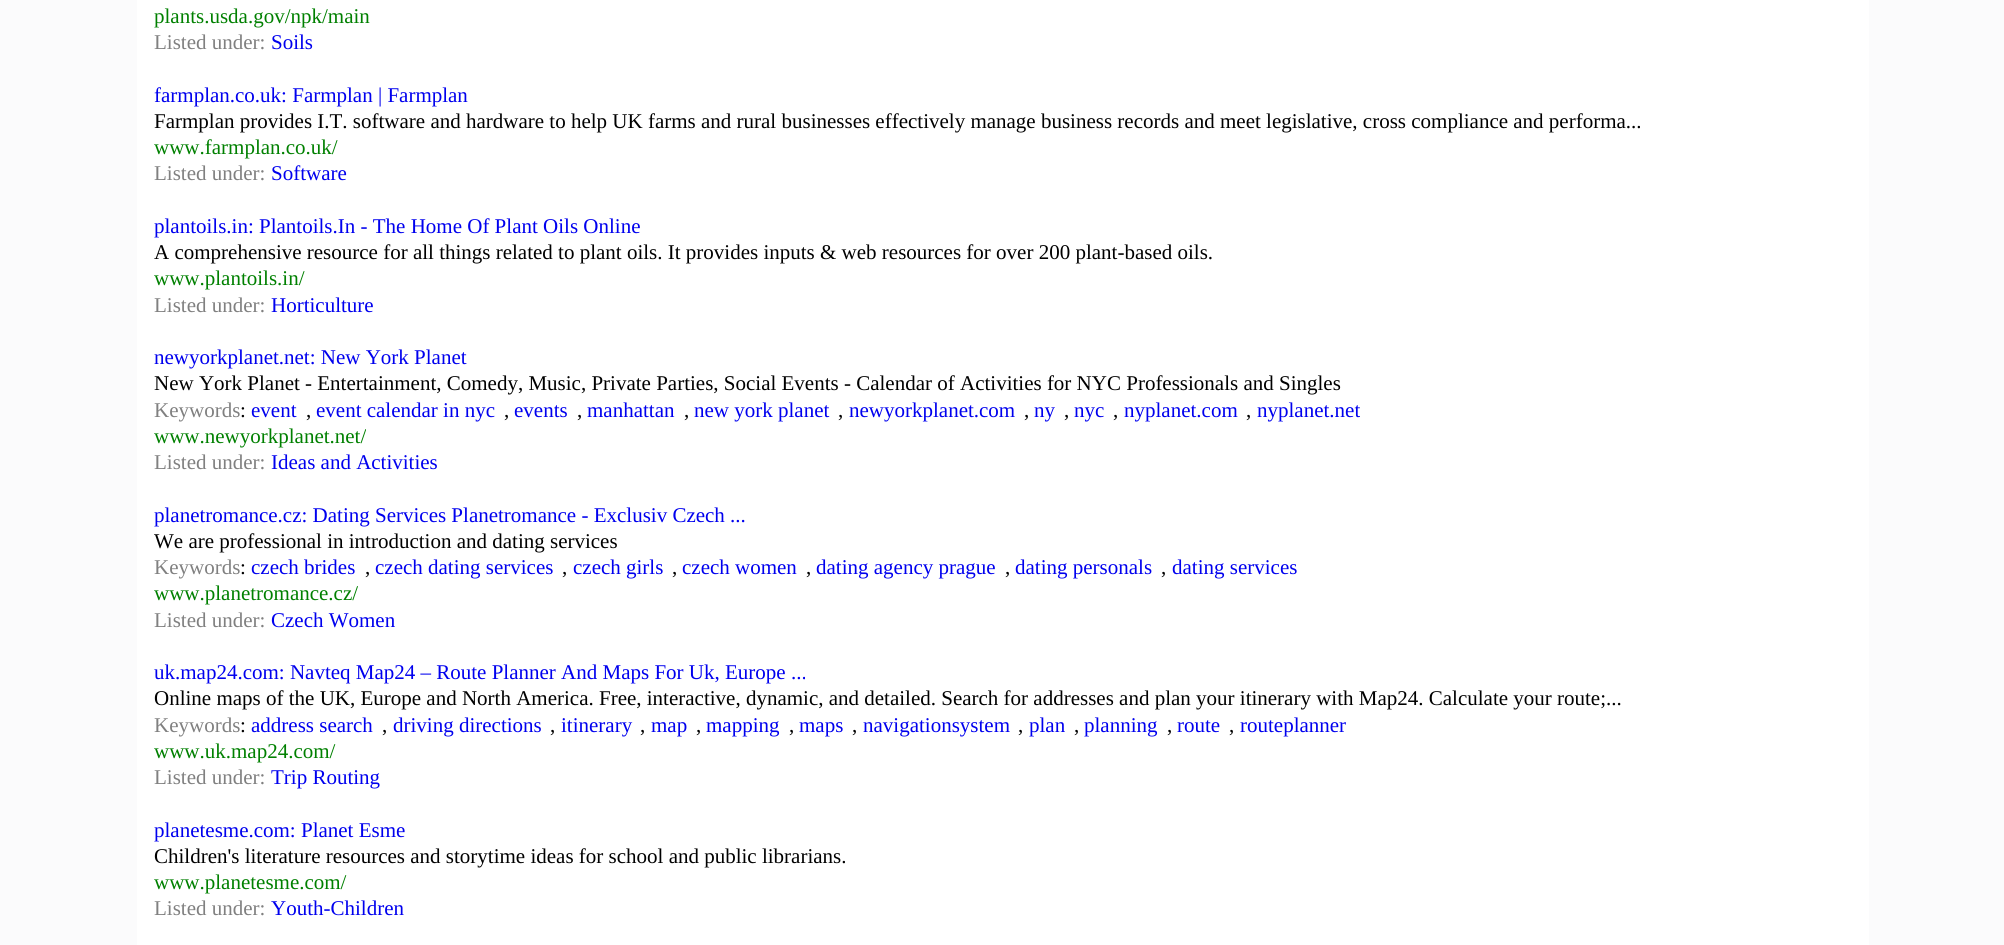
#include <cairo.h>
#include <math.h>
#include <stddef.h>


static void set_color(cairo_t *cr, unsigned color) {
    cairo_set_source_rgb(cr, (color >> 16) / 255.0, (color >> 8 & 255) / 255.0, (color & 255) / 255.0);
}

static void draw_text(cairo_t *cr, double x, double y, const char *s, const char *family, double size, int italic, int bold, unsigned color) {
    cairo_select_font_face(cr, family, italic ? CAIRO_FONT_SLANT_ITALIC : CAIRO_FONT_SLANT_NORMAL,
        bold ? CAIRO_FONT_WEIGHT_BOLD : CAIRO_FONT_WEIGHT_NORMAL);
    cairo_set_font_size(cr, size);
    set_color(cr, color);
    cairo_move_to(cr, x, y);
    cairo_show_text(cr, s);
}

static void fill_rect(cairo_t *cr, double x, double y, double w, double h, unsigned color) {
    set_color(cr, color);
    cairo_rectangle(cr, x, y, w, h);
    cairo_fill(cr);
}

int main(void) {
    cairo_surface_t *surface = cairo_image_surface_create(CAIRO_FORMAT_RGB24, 2004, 945);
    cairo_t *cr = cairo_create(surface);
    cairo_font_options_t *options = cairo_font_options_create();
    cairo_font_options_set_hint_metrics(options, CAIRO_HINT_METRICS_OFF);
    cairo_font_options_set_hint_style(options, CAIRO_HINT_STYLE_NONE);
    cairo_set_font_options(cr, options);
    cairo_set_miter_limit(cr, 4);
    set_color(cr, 0xFBFBFC);
    cairo_paint(cr);
    fill_rect(cr, 137, 0, 1732, 945, 0xFFFFFF);
    draw_text(cr, 154, 23, "plants.usda.gov/npk/main", "Liberation Serif", 21, 0, 0, 0x008000);
    draw_text(cr, 154, 49, "Listed under:", "Liberation Serif", 21, 0, 0, 0x808080);
    draw_text(cr, 271, 49, "Soils", "Liberation Serif", 21, 0, 0, 0x0000EE);
    draw_text(cr, 154, 102, "farmplan.co.uk: Farmplan | Farmplan", "Liberation Serif", 21, 0, 0, 0x0000EE);
    draw_text(cr, 154, 128, "Farmplan provides I.T. software and hardware to help UK farms and rural businesses effectively manage business records and meet legislative, cross compliance and performa...", "Liberation Serif", 21, 0, 0, 0x000000);
    draw_text(cr, 154, 154, "www.farmplan.co.uk/", "Liberation Serif", 21, 0, 0, 0x008000);
    draw_text(cr, 154, 180, "Listed under:", "Liberation Serif", 21, 0, 0, 0x808080);
    draw_text(cr, 271, 180, "Software", "Liberation Serif", 21, 0, 0, 0x0000EE);
    draw_text(cr, 154, 233, "plantoils.in: Plantoils.In - The Home Of Plant Oils Online", "Liberation Serif", 21, 0, 0, 0x0000EE);
    draw_text(cr, 154, 259, "A comprehensive resource for all things related to plant oils. It provides inputs & web resources for over 200 plant-based oils.", "Liberation Serif", 21, 0, 0, 0x000000);
    draw_text(cr, 154, 285, "www.plantoils.in/", "Liberation Serif", 21, 0, 0, 0x008000);
    draw_text(cr, 154, 312, "Listed under:", "Liberation Serif", 21, 0, 0, 0x808080);
    draw_text(cr, 271, 312, "Horticulture", "Liberation Serif", 21, 0, 0, 0x0000EE);
    draw_text(cr, 154, 364, "newyorkplanet.net: New York Planet", "Liberation Serif", 21, 0, 0, 0x0000EE);
    draw_text(cr, 154, 390, "New York Planet - Entertainment, Comedy, Music, Private Parties, Social Events - Calendar of Activities for NYC Professionals and Singles", "Liberation Serif", 21, 0, 0, 0x000000);
    draw_text(cr, 154, 417, "Keywords", "Liberation Serif", 21, 0, 0, 0x808080);
    draw_text(cr, 240, 417, ":", "Liberation Serif", 21, 0, 0, 0x000000);
    draw_text(cr, 251, 417, "event", "Liberation Serif", 21, 0, 0, 0x0000EE);
    draw_text(cr, 306, 417, ",", "Liberation Serif", 21, 0, 0, 0x000000);
    draw_text(cr, 316, 417, "event calendar in nyc", "Liberation Serif", 21, 0, 0, 0x0000EE);
    draw_text(cr, 504, 417, ",", "Liberation Serif", 21, 0, 0, 0x000000);
    draw_text(cr, 514, 417, "events", "Liberation Serif", 21, 0, 0, 0x0000EE);
    draw_text(cr, 577, 417, ",", "Liberation Serif", 21, 0, 0, 0x000000);
    draw_text(cr, 587, 417, "manhattan", "Liberation Serif", 21, 0, 0, 0x0000EE);
    draw_text(cr, 684, 417, ",", "Liberation Serif", 21, 0, 0, 0x000000);
    draw_text(cr, 694, 417, "new york planet", "Liberation Serif", 21, 0, 0, 0x0000EE);
    draw_text(cr, 838, 417, ",", "Liberation Serif", 21, 0, 0, 0x000000);
    draw_text(cr, 849, 417, "newyorkplanet.com", "Liberation Serif", 21, 0, 0, 0x0000EE);
    draw_text(cr, 1024, 417, ",", "Liberation Serif", 21, 0, 0, 0x000000);
    draw_text(cr, 1034, 417, "ny", "Liberation Serif", 21, 0, 0, 0x0000EE);
    draw_text(cr, 1064, 417, ",", "Liberation Serif", 21, 0, 0, 0x000000);
    draw_text(cr, 1074, 417, "nyc", "Liberation Serif", 21, 0, 0, 0x0000EE);
    draw_text(cr, 1113, 417, ",", "Liberation Serif", 21, 0, 0, 0x000000);
    draw_text(cr, 1124, 417, "nyplanet.com", "Liberation Serif", 21, 0, 0, 0x0000EE);
    draw_text(cr, 1246, 417, ",", "Liberation Serif", 21, 0, 0, 0x000000);
    draw_text(cr, 1257, 417, "nyplanet.net", "Liberation Serif", 21, 0, 0, 0x0000EE);
    draw_text(cr, 154, 443, "www.newyorkplanet.net/", "Liberation Serif", 21, 0, 0, 0x008000);
    draw_text(cr, 154, 469, "Listed under:", "Liberation Serif", 21, 0, 0, 0x808080);
    draw_text(cr, 271, 469, "Ideas and Activities", "Liberation Serif", 21, 0, 0, 0x0000EE);
    draw_text(cr, 154, 522, "planetromance.cz: Dating Services Planetromance - Exclusiv Czech ...", "Liberation Serif", 21, 0, 0, 0x0000EE);
    draw_text(cr, 154, 548, "We are professional in introduction and dating services", "Liberation Serif", 21, 0, 0, 0x000000);
    draw_text(cr, 154, 574, "Keywords", "Liberation Serif", 21, 0, 0, 0x808080);
    draw_text(cr, 240, 574, ":", "Liberation Serif", 21, 0, 0, 0x000000);
    draw_text(cr, 251, 574, "czech brides", "Liberation Serif", 21, 0, 0, 0x0000EE);
    draw_text(cr, 365, 574, ",", "Liberation Serif", 21, 0, 0, 0x000000);
    draw_text(cr, 375, 574, "czech dating services", "Liberation Serif", 21, 0, 0, 0x0000EE);
    draw_text(cr, 562, 574, ",", "Liberation Serif", 21, 0, 0, 0x000000);
    draw_text(cr, 573, 574, "czech girls", "Liberation Serif", 21, 0, 0, 0x0000EE);
    draw_text(cr, 672, 574, ",", "Liberation Serif", 21, 0, 0, 0x000000);
    draw_text(cr, 682, 574, "czech women", "Liberation Serif", 21, 0, 0, 0x0000EE);
    draw_text(cr, 806, 574, ",", "Liberation Serif", 21, 0, 0, 0x000000);
    draw_text(cr, 816, 574, "dating agency prague", "Liberation Serif", 21, 0, 0, 0x0000EE);
    draw_text(cr, 1005, 574, ",", "Liberation Serif", 21, 0, 0, 0x000000);
    draw_text(cr, 1015, 574, "dating personals", "Liberation Serif", 21, 0, 0, 0x0000EE);
    draw_text(cr, 1161, 574, ",", "Liberation Serif", 21, 0, 0, 0x000000);
    draw_text(cr, 1172, 574, "dating services", "Liberation Serif", 21, 0, 0, 0x0000EE);
    draw_text(cr, 154, 600, "www.planetromance.cz/", "Liberation Serif", 21, 0, 0, 0x008000);
    draw_text(cr, 154, 627, "Listed under:", "Liberation Serif", 21, 0, 0, 0x808080);
    draw_text(cr, 271, 627, "Czech Women", "Liberation Serif", 21, 0, 0, 0x0000EE);
    draw_text(cr, 154, 679, "uk.map24.com: Navteq Map24 – Route Planner And Maps For Uk, Europe ...", "Liberation Serif", 21, 0, 0, 0x0000EE);
    draw_text(cr, 154, 705, "Online maps of the UK, Europe and North America. Free, interactive, dynamic, and detailed. Search for addresses and plan your itinerary with Map24. Calculate your route;...", "Liberation Serif", 21, 0, 0, 0x000000);
    draw_text(cr, 154, 732, "Keywords", "Liberation Serif", 21, 0, 0, 0x808080);
    draw_text(cr, 240, 732, ":", "Liberation Serif", 21, 0, 0, 0x000000);
    draw_text(cr, 251, 732, "address search", "Liberation Serif", 21, 0, 0, 0x0000EE);
    draw_text(cr, 382, 732, ",", "Liberation Serif", 21, 0, 0, 0x000000);
    draw_text(cr, 393, 732, "driving directions", "Liberation Serif", 21, 0, 0, 0x0000EE);
    draw_text(cr, 550, 732, ",", "Liberation Serif", 21, 0, 0, 0x000000);
    draw_text(cr, 561, 732, "itinerary", "Liberation Serif", 21, 0, 0, 0x0000EE);
    draw_text(cr, 640, 732, ",", "Liberation Serif", 21, 0, 0, 0x000000);
    draw_text(cr, 651, 732, "map", "Liberation Serif", 21, 0, 0, 0x0000EE);
    draw_text(cr, 696, 732, ",", "Liberation Serif", 21, 0, 0, 0x000000);
    draw_text(cr, 706, 732, "mapping", "Liberation Serif", 21, 0, 0, 0x0000EE);
    draw_text(cr, 789, 732, ",", "Liberation Serif", 21, 0, 0, 0x000000);
    draw_text(cr, 799, 732, "maps", "Liberation Serif", 21, 0, 0, 0x0000EE);
    draw_text(cr, 852, 732, ",", "Liberation Serif", 21, 0, 0, 0x000000);
    draw_text(cr, 863, 732, "navigationsystem", "Liberation Serif", 21, 0, 0, 0x0000EE);
    draw_text(cr, 1018, 732, ",", "Liberation Serif", 21, 0, 0, 0x000000);
    draw_text(cr, 1029, 732, "plan", "Liberation Serif", 21, 0, 0, 0x0000EE);
    draw_text(cr, 1074, 732, ",", "Liberation Serif", 21, 0, 0, 0x000000);
    draw_text(cr, 1084, 732, "planning", "Liberation Serif", 21, 0, 0, 0x0000EE);
    draw_text(cr, 1167, 732, ",", "Liberation Serif", 21, 0, 0, 0x000000);
    draw_text(cr, 1177, 732, "route", "Liberation Serif", 21, 0, 0, 0x0000EE);
    draw_text(cr, 1229, 732, ",", "Liberation Serif", 21, 0, 0, 0x000000);
    draw_text(cr, 1240, 732, "routeplanner", "Liberation Serif", 21, 0, 0, 0x0000EE);
    draw_text(cr, 154, 758, "www.uk.map24.com/", "Liberation Serif", 21, 0, 0, 0x008000);
    draw_text(cr, 154, 784, "Listed under:", "Liberation Serif", 21, 0, 0, 0x808080);
    draw_text(cr, 271, 784, "Trip Routing", "Liberation Serif", 21, 0, 0, 0x0000EE);
    draw_text(cr, 154, 837, "planetesme.com: Planet Esme", "Liberation Serif", 21, 0, 0, 0x0000EE);
    draw_text(cr, 154, 863, "Children's literature resources and storytime ideas for school and public librarians.", "Liberation Serif", 21, 0, 0, 0x000000);
    draw_text(cr, 154, 889, "www.planetesme.com/", "Liberation Serif", 21, 0, 0, 0x008000);
    draw_text(cr, 154, 915, "Listed under:", "Liberation Serif", 21, 0, 0, 0x808080);
    draw_text(cr, 271, 915, "Youth-Children", "Liberation Serif", 21, 0, 0, 0x0000EE);
    cairo_surface_write_to_png(surface, "output.png");
    cairo_font_options_destroy(options);
    cairo_destroy(cr);
    cairo_surface_destroy(surface);
    return 0;
}
